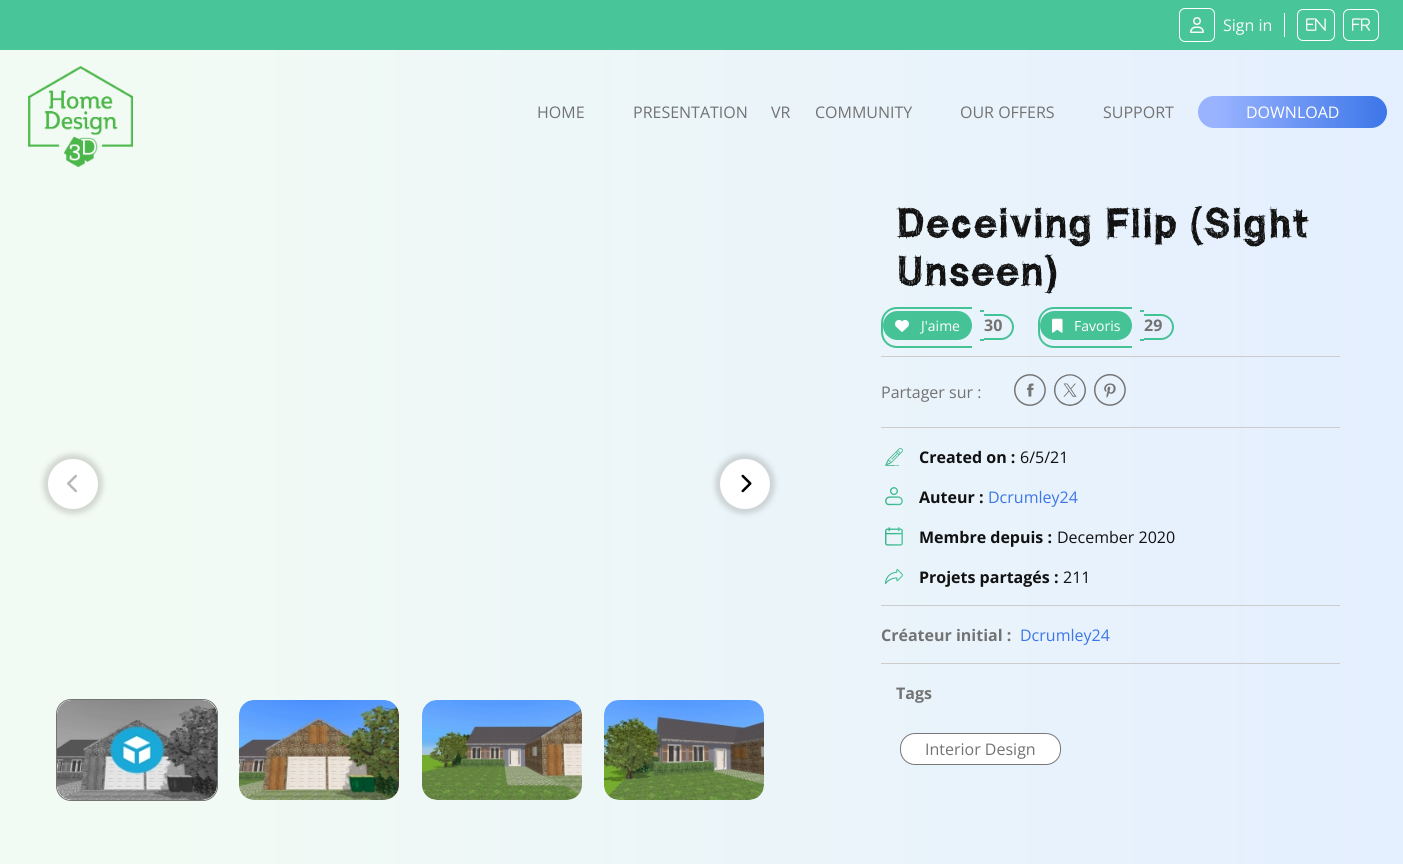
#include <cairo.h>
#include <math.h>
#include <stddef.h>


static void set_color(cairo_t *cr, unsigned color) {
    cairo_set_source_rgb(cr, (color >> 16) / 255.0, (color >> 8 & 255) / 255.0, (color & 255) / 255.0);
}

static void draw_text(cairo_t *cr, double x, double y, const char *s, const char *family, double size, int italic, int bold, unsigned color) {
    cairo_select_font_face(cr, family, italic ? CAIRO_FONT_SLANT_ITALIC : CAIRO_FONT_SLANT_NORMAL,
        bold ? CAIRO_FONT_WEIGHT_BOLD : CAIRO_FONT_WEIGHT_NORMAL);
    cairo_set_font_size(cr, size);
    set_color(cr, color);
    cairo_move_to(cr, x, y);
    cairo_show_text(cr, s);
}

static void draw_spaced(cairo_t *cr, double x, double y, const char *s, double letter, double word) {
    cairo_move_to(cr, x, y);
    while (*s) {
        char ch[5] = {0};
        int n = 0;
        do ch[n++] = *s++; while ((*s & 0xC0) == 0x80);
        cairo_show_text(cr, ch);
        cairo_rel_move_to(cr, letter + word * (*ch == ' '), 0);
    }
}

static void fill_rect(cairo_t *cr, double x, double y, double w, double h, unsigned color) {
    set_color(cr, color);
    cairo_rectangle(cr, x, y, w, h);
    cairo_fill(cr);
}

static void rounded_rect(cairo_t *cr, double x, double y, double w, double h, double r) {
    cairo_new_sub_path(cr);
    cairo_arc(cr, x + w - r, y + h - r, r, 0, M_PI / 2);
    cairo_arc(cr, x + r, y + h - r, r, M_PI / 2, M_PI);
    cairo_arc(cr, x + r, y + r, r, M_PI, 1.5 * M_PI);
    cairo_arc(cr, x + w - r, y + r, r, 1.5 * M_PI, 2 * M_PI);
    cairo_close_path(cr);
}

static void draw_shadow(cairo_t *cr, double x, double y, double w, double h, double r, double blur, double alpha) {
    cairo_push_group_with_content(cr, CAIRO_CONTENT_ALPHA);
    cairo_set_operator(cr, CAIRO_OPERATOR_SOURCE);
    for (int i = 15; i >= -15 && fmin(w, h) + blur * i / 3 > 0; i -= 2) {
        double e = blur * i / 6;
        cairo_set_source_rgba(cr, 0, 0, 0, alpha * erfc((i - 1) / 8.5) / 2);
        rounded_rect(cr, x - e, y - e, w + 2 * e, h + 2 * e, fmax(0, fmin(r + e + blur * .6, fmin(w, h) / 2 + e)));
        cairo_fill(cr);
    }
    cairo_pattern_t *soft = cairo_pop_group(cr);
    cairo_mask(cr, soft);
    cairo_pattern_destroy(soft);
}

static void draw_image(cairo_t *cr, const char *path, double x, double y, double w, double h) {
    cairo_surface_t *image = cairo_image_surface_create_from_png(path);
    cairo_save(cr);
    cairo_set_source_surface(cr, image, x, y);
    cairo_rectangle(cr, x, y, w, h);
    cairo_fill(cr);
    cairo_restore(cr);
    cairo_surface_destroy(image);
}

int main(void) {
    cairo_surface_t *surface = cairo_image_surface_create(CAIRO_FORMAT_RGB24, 1403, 864);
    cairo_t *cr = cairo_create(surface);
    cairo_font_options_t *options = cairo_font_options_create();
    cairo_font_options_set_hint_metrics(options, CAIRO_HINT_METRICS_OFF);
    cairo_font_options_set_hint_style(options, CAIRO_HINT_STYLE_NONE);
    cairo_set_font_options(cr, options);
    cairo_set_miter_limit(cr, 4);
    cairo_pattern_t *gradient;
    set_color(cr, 0xFFFFFF);
    cairo_paint(cr);
    fill_rect(cr, 0, 0, 1403, 50, 0x49C699);
    rounded_rect(cr, 1179.5, 8.5, 35, 33, 5.5);
    set_color(cr, 0xFFFFFF);
    cairo_set_line_width(cr, 1);
    cairo_stroke(cr);
    draw_image(cr, "assets/img1.png", 1190, 17, 14, 16);
    draw_text(cr, 1223, 31, "Sign in", "Open Sans", 16, 0, 0, 0xF8F9FA);
    fill_rect(cr, 1284, 13, 1, 24, 0xFFFFFF);
    rounded_rect(cr, 1297.5, 9.5, 37, 31, 5.5);
    cairo_stroke(cr);
    draw_image(cr, "assets/img2.png", 1306, 18, 20, 13);
    rounded_rect(cr, 1343.5, 9.5, 35, 31, 5.5);
    cairo_stroke(cr);
    draw_image(cr, "assets/img3.png", 1352, 18, 18, 13);
    gradient = cairo_pattern_create_linear(0, 113, 1403, 112);
    cairo_pattern_add_color_stop_rgba(gradient, 0.1, 0.949, 0.984, 0.953, 1);
    cairo_pattern_add_color_stop_rgba(gradient, 1, 0.894, 0.937, 1, 1);
    cairo_set_source(cr, gradient);
    cairo_pattern_destroy(gradient);
    cairo_rectangle(cr, 0, 50, 1403, 125);
    cairo_fill(cr);
    draw_image(cr, "assets/img4.png", 28, 66, 105, 101);
    draw_text(cr, 537, 118, "HOME", "Open Sans", 16, 0, 0, 0x737373);
    draw_text(cr, 633, 118, "PRESENTATION", "Open Sans", 16, 0, 0, 0x737373);
    draw_text(cr, 771, 118, "VR", "Open Sans", 16, 0, 0, 0x737373);
    draw_text(cr, 815, 118, "COMMUNITY", "Open Sans", 16, 0, 0, 0x737373);
    draw_text(cr, 960, 118, "OUR OFFERS", "Open Sans", 16, 0, 0, 0x737373);
    draw_text(cr, 1103, 118, "SUPPORT", "Open Sans", 16, 0, 0, 0x737373);
    gradient = cairo_pattern_create_linear(1198, 112, 1387, 112);
    cairo_pattern_add_color_stop_rgba(gradient, 0.1, 0.6, 0.702, 1, 1);
    cairo_pattern_add_color_stop_rgba(gradient, 1, 0.235, 0.463, 0.91, 1);
    cairo_set_source(cr, gradient);
    cairo_pattern_destroy(gradient);
    rounded_rect(cr, 1198, 96, 189, 32, 16);
    cairo_fill(cr);
    draw_text(cr, 1246, 118, "DOWNLOAD", "Open Sans", 16, 0, 0, 0xFFFFFF);
    gradient = cairo_pattern_create_linear(0, 537, 1403, 537);
    cairo_pattern_add_color_stop_rgba(gradient, 0.1, 0.949, 0.984, 0.953, 1);
    cairo_pattern_add_color_stop_rgba(gradient, 1, 0.894, 0.937, 1, 1);
    cairo_set_source(cr, gradient);
    cairo_pattern_destroy(gradient);
    cairo_rectangle(cr, 0, 175, 1403, 689);
    cairo_fill(cr);
    set_color(cr, 0x6F6F6F);
    draw_shadow(cr, 43, 454, 60, 60, 30, 2.5, 0.25);
    set_color(cr, 0xFFFFFF);
    cairo_arc(cr, 73, 484, 25, 0, 2 * M_PI);
    cairo_fill(cr);
    draw_image(cr, "assets/img5.png", 67, 474, 10, 19);
    set_color(cr, 0x6F6F6F);
    draw_shadow(cr, 715, 454, 60, 60, 30, 2.5, 0.25);
    set_color(cr, 0xFFFFFF);
    cairo_arc(cr, 745, 484, 25, 0, 2 * M_PI);
    cairo_fill(cr);
    draw_image(cr, "assets/img6.png", 741, 474, 11, 19);
    rounded_rect(cr, 56.5, 699.5, 161, 101, 14.5);
    set_color(cr, 0x737373);
    cairo_stroke(cr);
    draw_image(cr, "assets/img7.png", 57, 700, 160, 100);
    draw_image(cr, "assets/img8.png", 239, 700, 160, 100);
    draw_image(cr, "assets/img9.png", 422, 700, 160, 100);
    draw_image(cr, "assets/img10.png", 604, 700, 160, 100);
    cairo_select_font_face(cr, "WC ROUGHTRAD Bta", CAIRO_FONT_SLANT_NORMAL, CAIRO_FONT_WEIGHT_NORMAL);
    cairo_set_font_size(cr, 40);
    set_color(cr, 0x111111);
    draw_spaced(cr, 896, 237, "Deceiving Flip (Sight", 1, 0);
    draw_spaced(cr, 896, 285, "Unseen)", 1, 0);
    set_color(cr, 0x46C396);
    cairo_set_fill_rule(cr, CAIRO_FILL_RULE_EVEN_ODD);
    cairo_new_path(cr);
    cairo_move_to(cr, 897, 307);
    cairo_line_to(cr, 972, 307);
    cairo_line_to(cr, 972, 348);
    cairo_line_to(cr, 897, 348);
    cairo_curve_to(cr, 888, 348, 881, 341, 881, 332);
    cairo_line_to(cr, 881, 323);
    cairo_curve_to(cr, 881, 314, 888, 307, 897, 307);
    cairo_close_path(cr);
    cairo_move_to(cr, 897, 309);
    cairo_line_to(cr, 972, 309);
    cairo_line_to(cr, 972, 346);
    cairo_line_to(cr, 897, 346);
    cairo_curve_to(cr, 889, 346, 883, 340, 883, 332);
    cairo_line_to(cr, 883, 323);
    cairo_curve_to(cr, 883, 315, 889, 309, 897, 309);
    cairo_close_path(cr);
    cairo_fill(cr);
    fill_rect(cr, 980, 310, 4, 2, 0x46C396);
    fill_rect(cr, 980, 339, 4, 2, 0x46C396);
    cairo_new_path(cr);
    cairo_move_to(cr, 984, 314);
    cairo_line_to(cr, 1001, 314);
    cairo_curve_to(cr, 1008, 314, 1014, 320, 1014, 327);
    cairo_curve_to(cr, 1014, 334, 1008, 340, 1001, 340);
    cairo_line_to(cr, 984, 340);
    cairo_close_path(cr);
    cairo_move_to(cr, 984, 316);
    cairo_line_to(cr, 1001, 316);
    cairo_curve_to(cr, 1007, 316, 1012, 321, 1012, 327);
    cairo_curve_to(cr, 1012, 333, 1007, 338, 1001, 338);
    cairo_line_to(cr, 984, 338);
    cairo_close_path(cr);
    cairo_fill(cr);
    rounded_rect(cr, 883, 311, 89, 29, 14.5);
    cairo_fill(cr);
    draw_image(cr, "assets/img11.png", 895, 319, 14, 13);
    draw_text(cr, 921, 331, "J'aime", "Open Sans", 14, 0, 0, 0xFFFFFF);
    draw_text(cr, 984, 331, "30", "Open Sans", 16, 0, 1, 0x737373);
    set_color(cr, 0x46C396);
    cairo_new_path(cr);
    cairo_move_to(cr, 1054, 307);
    cairo_line_to(cr, 1132, 307);
    cairo_line_to(cr, 1132, 348);
    cairo_line_to(cr, 1054, 348);
    cairo_curve_to(cr, 1045, 348, 1038, 341, 1038, 332);
    cairo_line_to(cr, 1038, 323);
    cairo_curve_to(cr, 1038, 314, 1045, 307, 1054, 307);
    cairo_close_path(cr);
    cairo_move_to(cr, 1054, 309);
    cairo_line_to(cr, 1132, 309);
    cairo_line_to(cr, 1132, 346);
    cairo_line_to(cr, 1054, 346);
    cairo_curve_to(cr, 1046, 346, 1040, 340, 1040, 332);
    cairo_line_to(cr, 1040, 323);
    cairo_curve_to(cr, 1040, 315, 1046, 309, 1054, 309);
    cairo_close_path(cr);
    cairo_fill(cr);
    fill_rect(cr, 1140, 310, 4, 2, 0x46C396);
    fill_rect(cr, 1140, 339, 4, 2, 0x46C396);
    cairo_new_path(cr);
    cairo_move_to(cr, 1144, 314);
    cairo_line_to(cr, 1161, 314);
    cairo_curve_to(cr, 1168, 314, 1174, 320, 1174, 327);
    cairo_curve_to(cr, 1174, 334, 1168, 340, 1161, 340);
    cairo_line_to(cr, 1144, 340);
    cairo_close_path(cr);
    cairo_move_to(cr, 1144, 316);
    cairo_line_to(cr, 1161, 316);
    cairo_curve_to(cr, 1167, 316, 1172, 321, 1172, 327);
    cairo_curve_to(cr, 1172, 333, 1167, 338, 1161, 338);
    cairo_line_to(cr, 1144, 338);
    cairo_close_path(cr);
    cairo_fill(cr);
    rounded_rect(cr, 1040, 311, 92, 29, 14.5);
    cairo_fill(cr);
    draw_image(cr, "assets/img12.png", 1052, 318, 11, 15);
    draw_text(cr, 1074, 331, "Favoris", "Open Sans", 14, 0, 0, 0xFFFFFF);
    draw_text(cr, 1144, 331, "29", "Open Sans", 16, 0, 1, 0x737373);
    fill_rect(cr, 881, 356, 459, 1, 0xCCCCCC);
    draw_text(cr, 881, 398, "Partager sur :", "Open Sans", 16, 0, 0, 0x737373);
    draw_image(cr, "assets/img13.png", 1014, 374, 32, 32);
    draw_image(cr, "assets/img14.png", 1054, 374, 32, 32);
    draw_image(cr, "assets/img15.png", 1094, 374, 32, 32);
    fill_rect(cr, 881, 427, 459, 1, 0xCCCCCC);
    draw_image(cr, "assets/img16.png", 885, 448, 18, 18);
    draw_text(cr, 919, 463, "Created on :", "Open Sans", 16, 0, 1, 0x111111);
    draw_text(cr, 1020, 463, "6/5/21", "Open Sans", 16, 0, 0, 0x111111);
    draw_image(cr, "assets/img17.png", 885, 487, 18, 19);
    draw_text(cr, 919, 503, "Auteur :", "Open Sans", 16, 0, 1, 0x111111);
    draw_text(cr, 988, 503, "Dcrumley24", "Open Sans", 16, 0, 0, 0x3C76E8);
    draw_image(cr, "assets/img18.png", 885, 527, 18, 19);
    draw_text(cr, 919, 543, "Membre depuis :", "Open Sans", 16, 0, 1, 0x111111);
    draw_text(cr, 1057, 543, "December 2020", "Open Sans", 16, 0, 0, 0x111111);
    draw_image(cr, "assets/img19.png", 885, 569, 18, 15);
    draw_text(cr, 919, 583, "Projets partagés :", "Open Sans", 16, 0, 1, 0x111111);
    draw_text(cr, 1063, 583, "211", "Open Sans", 16, 0, 0, 0x111111);
    fill_rect(cr, 881, 605, 459, 1, 0xCCCCCC);
    draw_text(cr, 881, 641, "Créateur initial :", "Open Sans", 16, 0, 1, 0x737373);
    draw_text(cr, 1020, 641, "Dcrumley24", "Open Sans", 16, 0, 0, 0x3C76E8);
    fill_rect(cr, 881, 663, 459, 1, 0xCCCCCC);
    draw_text(cr, 896, 699, "Tags", "Open Sans", 16, 0, 1, 0x737373);
    set_color(cr, 0xFFFFFF);
    rounded_rect(cr, 900.5, 733.5, 160, 31, 14.5);
    cairo_fill_preserve(cr);
    set_color(cr, 0x787878);
    cairo_stroke(cr);
    draw_text(cr, 925, 755, "Interior Design", "Open Sans", 16, 0, 0, 0x737373);
    cairo_surface_write_to_png(surface, "output.png");
    cairo_font_options_destroy(options);
    cairo_destroy(cr);
    cairo_surface_destroy(surface);
    return 0;
}
